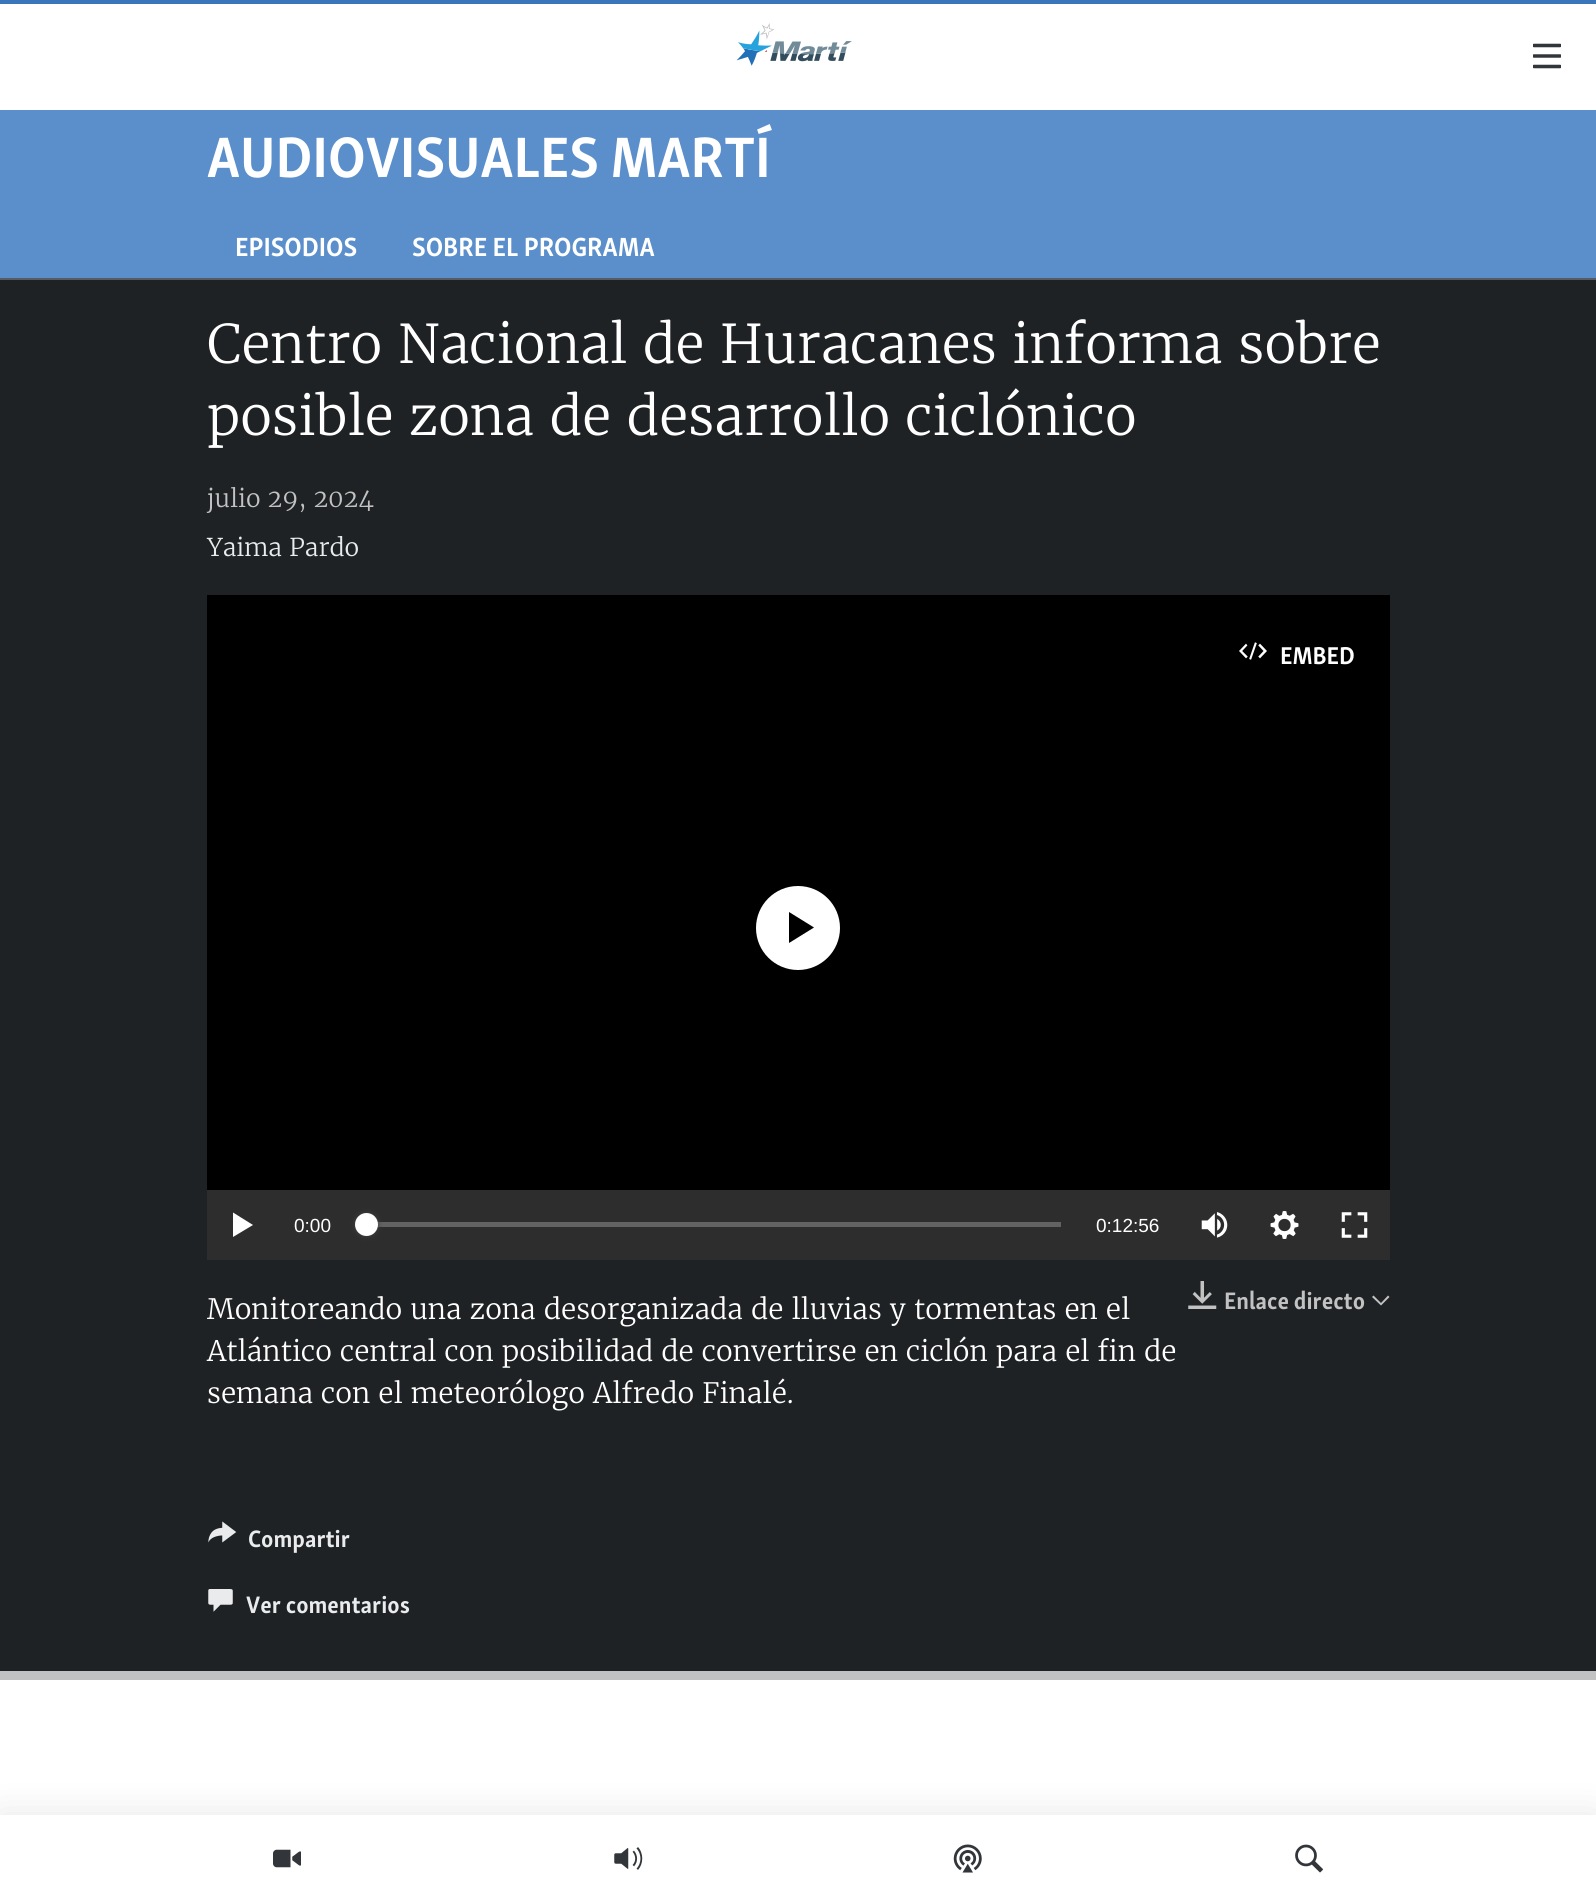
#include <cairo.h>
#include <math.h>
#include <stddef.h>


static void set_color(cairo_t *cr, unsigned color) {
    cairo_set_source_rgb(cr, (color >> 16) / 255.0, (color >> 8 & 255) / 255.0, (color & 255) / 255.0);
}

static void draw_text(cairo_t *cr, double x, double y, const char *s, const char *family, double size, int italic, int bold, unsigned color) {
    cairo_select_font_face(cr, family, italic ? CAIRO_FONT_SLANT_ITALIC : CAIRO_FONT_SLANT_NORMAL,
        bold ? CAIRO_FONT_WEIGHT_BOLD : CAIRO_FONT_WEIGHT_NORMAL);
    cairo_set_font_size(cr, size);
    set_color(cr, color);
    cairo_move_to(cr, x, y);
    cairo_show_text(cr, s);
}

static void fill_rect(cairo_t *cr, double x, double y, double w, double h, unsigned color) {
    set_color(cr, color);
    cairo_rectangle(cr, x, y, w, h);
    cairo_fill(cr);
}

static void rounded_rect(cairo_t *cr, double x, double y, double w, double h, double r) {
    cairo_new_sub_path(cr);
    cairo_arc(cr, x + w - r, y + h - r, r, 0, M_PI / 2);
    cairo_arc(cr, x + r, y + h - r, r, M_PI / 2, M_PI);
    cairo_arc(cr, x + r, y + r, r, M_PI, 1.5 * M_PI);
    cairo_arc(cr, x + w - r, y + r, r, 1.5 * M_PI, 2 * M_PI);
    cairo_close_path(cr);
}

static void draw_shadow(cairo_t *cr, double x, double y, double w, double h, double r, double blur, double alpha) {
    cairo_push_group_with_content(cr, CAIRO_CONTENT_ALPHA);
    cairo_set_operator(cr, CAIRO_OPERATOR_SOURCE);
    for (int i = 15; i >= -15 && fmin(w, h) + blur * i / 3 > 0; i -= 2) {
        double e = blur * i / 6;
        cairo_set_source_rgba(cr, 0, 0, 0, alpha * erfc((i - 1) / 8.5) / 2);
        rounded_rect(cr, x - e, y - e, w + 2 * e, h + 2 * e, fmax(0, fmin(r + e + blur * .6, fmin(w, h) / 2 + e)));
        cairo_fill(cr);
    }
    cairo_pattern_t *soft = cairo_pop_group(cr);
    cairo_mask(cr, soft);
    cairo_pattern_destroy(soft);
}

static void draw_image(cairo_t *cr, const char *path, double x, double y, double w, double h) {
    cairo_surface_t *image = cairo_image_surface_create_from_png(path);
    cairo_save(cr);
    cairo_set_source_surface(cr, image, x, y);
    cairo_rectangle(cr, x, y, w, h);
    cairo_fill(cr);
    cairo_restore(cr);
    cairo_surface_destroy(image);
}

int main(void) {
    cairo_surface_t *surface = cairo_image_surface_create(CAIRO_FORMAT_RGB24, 1596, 1901);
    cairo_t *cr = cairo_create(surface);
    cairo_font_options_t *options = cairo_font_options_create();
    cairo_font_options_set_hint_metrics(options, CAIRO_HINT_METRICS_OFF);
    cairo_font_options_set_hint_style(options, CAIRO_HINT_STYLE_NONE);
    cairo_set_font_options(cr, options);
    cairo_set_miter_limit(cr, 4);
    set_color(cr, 0xFFFFFF);
    cairo_paint(cr);
    fill_rect(cr, 0, 0, 1596, 4, 0x3A75BA);
    draw_image(cr, "assets/img1.png", 736, 23, 116, 43);
    draw_image(cr, "assets/img2.png", 1533, 43, 28, 26);
    set_color(cr, 0x000000);
    draw_shadow(cr, 0, 1815, 1596, 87, 0, 17.5, 0.1);
    fill_rect(cr, 0, 1815, 1596, 86, 0xFFFFFF);
    draw_image(cr, "assets/img3.png", 273, 1849, 28, 19);
    draw_image(cr, "assets/img4.png", 614, 1847, 29, 23);
    draw_image(cr, "assets/img5.png", 953, 1844, 29, 29);
    draw_image(cr, "assets/img6.png", 1295, 1844, 28, 29);
    fill_rect(cr, 0, 110, 1596, 168, 0x5B8FCC);
    draw_text(cr, 207, 177, "AUDIOVISUALES MARTÍ", "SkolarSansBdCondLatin", 58.5, 0, 1, 0xFFFFFF);
    draw_text(cr, 235, 256, "EPISODIOS", "SkolarSansBdCondLatin", 27, 0, 1, 0xFFFFFF);
    draw_text(cr, 412, 256, "SOBRE EL PROGRAMA", "SkolarSansBdCondLatin", 27, 0, 1, 0xFFFFFF);
    fill_rect(cr, 0, 280, 1596, 1391, 0x1F2224);
    fill_rect(cr, 0, 278, 1596, 2, 0x555C63);
    fill_rect(cr, 0, 1671, 1596, 9, 0xC2C2C2);
    draw_text(cr, 207, 363, "Centro Nacional de Huracanes informa sobre", "Merriweather Light", 53.2, 0, 0, 0xFFFFFF);
    draw_text(cr, 207, 435, "posible zona de desarrollo ciclónico", "Merriweather Light", 53.2, 0, 0, 0xFFFFFF);
    draw_text(cr, 207, 507, "julio 29, 2024", "Merriweather Light", 24.5, 0, 0, 0xC2C2C2);
    draw_text(cr, 207, 556, "Yaima Pardo", "Merriweather Light", 24.5, 0, 0, 0xE9EBEC);
    fill_rect(cr, 207, 595, 1183, 595, 0x000000);
    draw_image(cr, "assets/img7.png", 1239, 642, 28, 18);
    draw_text(cr, 1280, 664, "EMBED", "SkolarSansBdCondLatin", 25, 0, 1, 0xFFFFFF);
    cairo_new_path(cr);
    cairo_arc(cr, 798, 928, 42, 0, 2 * M_PI);
    cairo_fill(cr);
    set_color(cr, 0x000000);
    cairo_new_path(cr);
    cairo_move_to(cr, 789, 943);
    cairo_line_to(cr, 814, 927.5);
    cairo_line_to(cr, 789, 912);
    cairo_close_path(cr);
    cairo_fill(cr);
    fill_rect(cr, 207, 1190, 1183, 70, 0x2D2D2D);
    set_color(cr, 0xFFFFFF);
    cairo_new_path(cr);
    cairo_move_to(cr, 233, 1237);
    cairo_line_to(cr, 253, 1225);
    cairo_line_to(cr, 233, 1212.5);
    cairo_close_path(cr);
    cairo_fill(cr);
    draw_text(cr, 294, 1232, "0:00", "Liberation Sans", 19, 0, 0, 0xFFFFFF);
    fill_rect(cr, 377, 1222, 684, 5, 0x626262);
    set_color(cr, 0x414144);
    draw_shadow(cr, 355, 1213, 23, 23, 11.5, 2.5, 1);
    set_color(cr, 0xFFFFFF);
    cairo_arc(cr, 366.5, 1224.5, 11.5, 0, 2 * M_PI);
    cairo_fill(cr);
    draw_text(cr, 1096, 1232, "0:12:56", "Liberation Sans", 19, 0, 0, 0xFFFFFF);
    draw_image(cr, "assets/img8.png", 1201, 1212, 27, 26);
    draw_image(cr, "assets/img9.png", 1270, 1211, 29, 28);
    draw_image(cr, "assets/img10.png", 1341, 1212, 27, 26);
    draw_text(cr, 207, 1319, "Monitoreando una zona desorganizada de lluvias y tormentas en el", "Merriweather Light", 28, 0, 0, 0xFFFFFF);
    draw_text(cr, 207, 1361, "Atlántico central con posibilidad de convertirse en ciclón para el fin de", "Merriweather Light", 28, 0, 0, 0xFFFFFF);
    draw_text(cr, 207, 1403, "semana con el meteorólogo Alfredo Finalé.", "Merriweather Light", 28, 0, 0, 0xFFFFFF);
    draw_image(cr, "assets/img11.png", 1188, 1281, 29, 28);
    draw_text(cr, 1224, 1309, "Enlace directo", "SkolarSansBdCondLatin", 24.5, 0, 1, 0xC2C2C2);
    cairo_new_path(cr);
    cairo_move_to(cr, 1372, 1297);
    cairo_line_to(cr, 1381, 1305.5);
    cairo_line_to(cr, 1389.5, 1297);
    cairo_line_to(cr, 1388, 1295.5);
    cairo_line_to(cr, 1381, 1303);
    cairo_line_to(cr, 1373.5, 1295.5);
    cairo_close_path(cr);
    cairo_fill(cr);
    draw_image(cr, "assets/img12.png", 208, 1521, 29, 22);
    draw_text(cr, 248, 1547, "Compartir", "SkolarSansBdCondLatin", 24.5, 0, 1, 0xE9EBEC);
    draw_image(cr, "assets/img13.png", 208, 1589, 25, 23);
    draw_text(cr, 246, 1613, "Ver comentarios", "SkolarSansBdCondLatin", 24.5, 0, 1, 0xE9EBEC);
    cairo_surface_write_to_png(surface, "output.png");
    cairo_font_options_destroy(options);
    cairo_destroy(cr);
    cairo_surface_destroy(surface);
    return 0;
}
